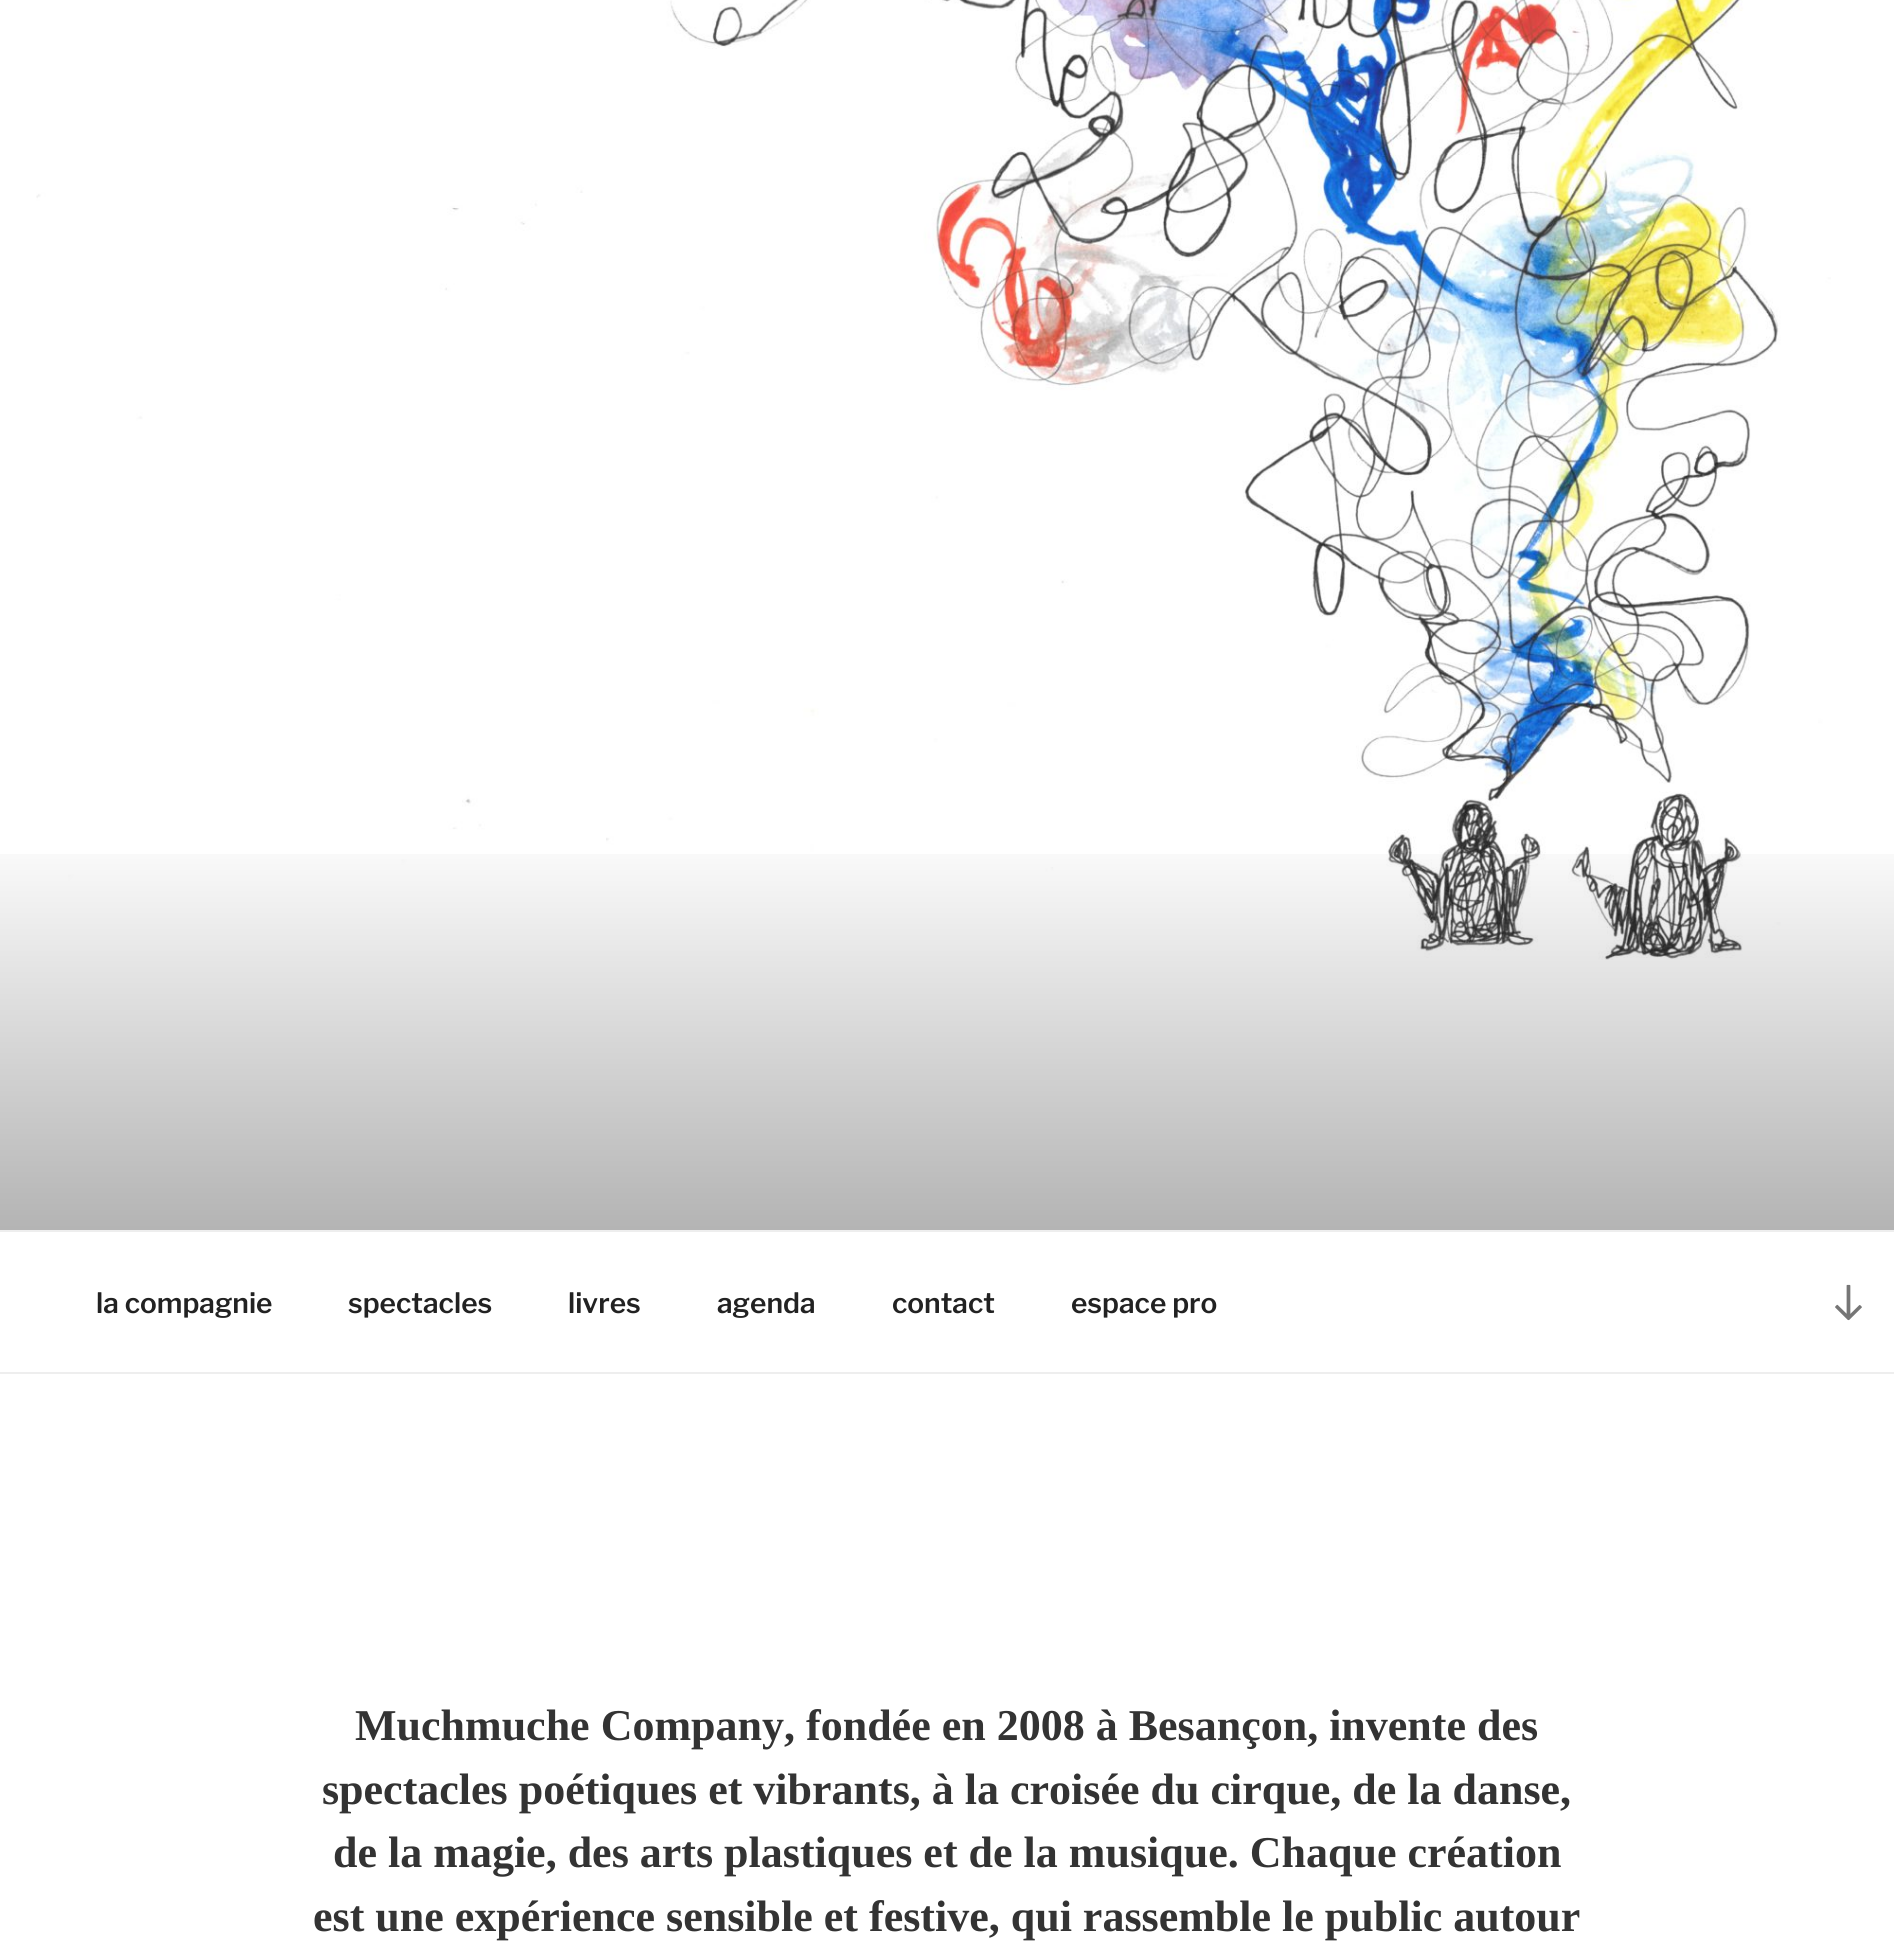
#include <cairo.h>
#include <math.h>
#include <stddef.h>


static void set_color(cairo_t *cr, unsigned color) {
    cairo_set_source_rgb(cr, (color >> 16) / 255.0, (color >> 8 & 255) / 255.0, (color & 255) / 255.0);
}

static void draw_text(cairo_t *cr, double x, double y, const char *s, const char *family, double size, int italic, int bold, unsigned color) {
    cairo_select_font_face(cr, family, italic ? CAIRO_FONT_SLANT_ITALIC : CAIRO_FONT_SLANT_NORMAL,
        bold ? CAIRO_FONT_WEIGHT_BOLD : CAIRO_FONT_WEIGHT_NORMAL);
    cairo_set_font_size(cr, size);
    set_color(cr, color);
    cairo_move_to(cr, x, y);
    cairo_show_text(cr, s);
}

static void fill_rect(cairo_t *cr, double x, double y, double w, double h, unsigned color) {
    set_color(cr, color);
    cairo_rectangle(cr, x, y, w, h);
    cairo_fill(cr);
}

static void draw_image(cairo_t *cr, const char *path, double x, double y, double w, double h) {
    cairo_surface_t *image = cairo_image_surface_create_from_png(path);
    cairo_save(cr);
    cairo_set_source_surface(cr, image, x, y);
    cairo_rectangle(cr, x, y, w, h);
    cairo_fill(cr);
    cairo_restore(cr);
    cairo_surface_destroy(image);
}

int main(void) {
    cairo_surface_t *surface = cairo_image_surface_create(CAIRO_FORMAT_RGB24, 1894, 1953);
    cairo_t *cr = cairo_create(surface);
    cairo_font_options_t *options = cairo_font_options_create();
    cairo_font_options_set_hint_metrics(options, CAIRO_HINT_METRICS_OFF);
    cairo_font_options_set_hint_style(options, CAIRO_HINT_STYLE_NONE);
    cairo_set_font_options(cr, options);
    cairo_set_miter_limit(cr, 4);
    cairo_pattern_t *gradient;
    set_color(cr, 0xFFFFFF);
    cairo_paint(cr);
    draw_image(cr, "assets/img1.png", 36, 0, 1795, 960);
    gradient = cairo_pattern_create_linear(947, 824, 947, 1374);
    cairo_pattern_add_color_stop_rgba(gradient, 0, 0, 0, 0, 0);
    cairo_pattern_add_color_stop_rgba(gradient, 0.75, 0, 0, 0, 0.3);
    cairo_pattern_add_color_stop_rgba(gradient, 1, 0, 0, 0, 0.3);
    cairo_set_source(cr, gradient);
    cairo_pattern_destroy(gradient);
    cairo_rectangle(cr, 0, 854, 1894, 376);
    cairo_fill(cr);
    fill_rect(cr, 0, 1230, 1894, 2, 0xEEEEEE);
    fill_rect(cr, 0, 1372, 1894, 2, 0xEEEEEE);
    draw_text(cr, 96, 1313, "la compagnie", "Libre Franklin SemiBold", 28, 0, 0, 0x222222);
    draw_text(cr, 348, 1313, "spectacles", "Libre Franklin SemiBold", 28, 0, 0, 0x222222);
    draw_text(cr, 568, 1313, "livres", "Libre Franklin SemiBold", 28, 0, 0, 0x222222);
    draw_text(cr, 717, 1313, "agenda", "Libre Franklin SemiBold", 28, 0, 0, 0x222222);
    draw_text(cr, 892, 1313, "contact", "Libre Franklin SemiBold", 28, 0, 0, 0x222222);
    draw_text(cr, 1071, 1313, "espace pro", "Libre Franklin SemiBold", 28, 0, 0, 0x222222);
    draw_image(cr, "assets/img2.png", 1835, 1284, 27, 37);
    draw_text(cr, 355, 1740, "Muchmuche Company, fondée en 2008 à Besançon, invente des", "Liberation Serif", 44, 0, 1, 0x333333);
    draw_text(cr, 322, 1804, "spectacles poétiques et vibrants, à la croisée du cirque, de la danse,", "Liberation Serif", 44, 0, 1, 0x333333);
    draw_text(cr, 333, 1867, "de la magie, des arts plastiques et de la musique. Chaque création", "Liberation Serif", 44, 0, 1, 0x333333);
    draw_text(cr, 313, 1931, "est une expérience sensible et festive, qui rassemble le public autour", "Liberation Serif", 44, 0, 1, 0x333333);
    cairo_surface_write_to_png(surface, "output.png");
    cairo_font_options_destroy(options);
    cairo_destroy(cr);
    cairo_surface_destroy(surface);
    return 0;
}
